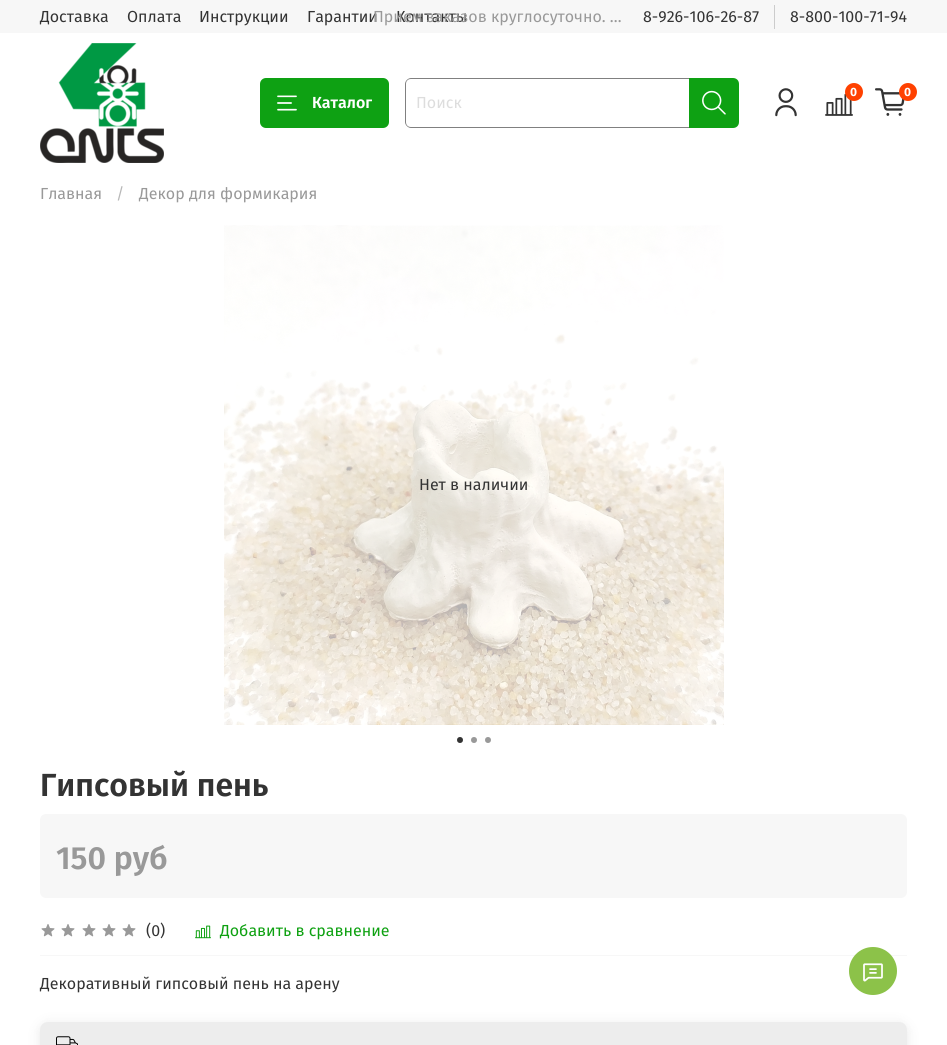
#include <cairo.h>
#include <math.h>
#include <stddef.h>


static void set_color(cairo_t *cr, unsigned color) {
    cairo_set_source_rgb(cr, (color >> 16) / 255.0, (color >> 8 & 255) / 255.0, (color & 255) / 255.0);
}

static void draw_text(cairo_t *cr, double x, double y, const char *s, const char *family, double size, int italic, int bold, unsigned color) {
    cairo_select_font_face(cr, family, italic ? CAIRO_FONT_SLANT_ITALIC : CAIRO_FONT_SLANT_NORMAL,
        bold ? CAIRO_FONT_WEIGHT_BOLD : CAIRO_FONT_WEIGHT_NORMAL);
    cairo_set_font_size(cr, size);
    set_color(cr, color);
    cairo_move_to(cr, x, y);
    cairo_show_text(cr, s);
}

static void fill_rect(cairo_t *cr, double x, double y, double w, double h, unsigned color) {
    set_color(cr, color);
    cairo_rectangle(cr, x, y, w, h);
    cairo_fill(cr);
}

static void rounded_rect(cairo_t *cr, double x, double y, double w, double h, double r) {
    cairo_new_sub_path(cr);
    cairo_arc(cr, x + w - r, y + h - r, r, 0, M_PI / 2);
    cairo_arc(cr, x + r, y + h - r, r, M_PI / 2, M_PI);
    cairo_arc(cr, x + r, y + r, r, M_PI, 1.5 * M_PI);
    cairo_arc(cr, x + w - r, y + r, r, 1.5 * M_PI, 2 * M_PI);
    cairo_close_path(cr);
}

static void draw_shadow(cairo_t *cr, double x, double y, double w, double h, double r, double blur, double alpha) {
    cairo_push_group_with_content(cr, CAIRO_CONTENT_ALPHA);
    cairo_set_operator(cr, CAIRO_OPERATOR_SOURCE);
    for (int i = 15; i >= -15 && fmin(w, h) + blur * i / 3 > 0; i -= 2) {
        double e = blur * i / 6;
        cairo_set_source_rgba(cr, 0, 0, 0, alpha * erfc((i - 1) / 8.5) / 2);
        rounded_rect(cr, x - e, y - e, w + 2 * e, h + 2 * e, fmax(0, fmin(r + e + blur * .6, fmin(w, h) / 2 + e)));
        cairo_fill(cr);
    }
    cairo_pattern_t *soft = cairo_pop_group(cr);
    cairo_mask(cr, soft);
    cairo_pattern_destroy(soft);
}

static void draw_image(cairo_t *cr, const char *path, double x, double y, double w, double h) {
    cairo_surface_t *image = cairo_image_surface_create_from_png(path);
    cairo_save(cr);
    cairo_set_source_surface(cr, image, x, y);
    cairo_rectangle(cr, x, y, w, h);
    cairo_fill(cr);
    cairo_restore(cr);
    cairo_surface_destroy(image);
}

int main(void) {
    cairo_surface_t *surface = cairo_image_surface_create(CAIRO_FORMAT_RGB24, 947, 1045);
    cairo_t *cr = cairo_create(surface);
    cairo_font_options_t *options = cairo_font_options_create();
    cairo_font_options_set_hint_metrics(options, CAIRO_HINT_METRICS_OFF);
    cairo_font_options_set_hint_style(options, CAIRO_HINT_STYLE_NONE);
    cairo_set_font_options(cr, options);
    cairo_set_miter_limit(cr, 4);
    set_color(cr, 0xFFFFFF);
    cairo_paint(cr);
    fill_rect(cr, 0, 0, 947, 33, 0xF7F7F7);
    draw_text(cr, 40, 22, "Доставка", "Fira Sans", 16, 0, 0, 0x333333);
    draw_text(cr, 127, 22, "Оплата", "Fira Sans", 16, 0, 0, 0x333333);
    draw_text(cr, 199, 22, "Инструкции", "Fira Sans", 16, 0, 0, 0x333333);
    draw_text(cr, 307, 22, "Гарантии", "Fira Sans", 16, 0, 0, 0x333333);
    draw_text(cr, 396, 22, "Контакты", "Fira Sans", 16, 0, 0, 0x333333);
    draw_text(cr, 373, 22, "Прием заказов круглосуточно. …", "Fira Sans", 16, 0, 0, 0x999999);
    fill_rect(cr, 774, 5, 1, 24, 0xCCCCCC);
    draw_text(cr, 643, 22, "8-926-106-26-87", "Fira Sans", 16, 0, 0, 0x333333);
    draw_text(cr, 790, 22, "8-800-100-71-94", "Fira Sans", 16, 0, 0, 0x333333);
    draw_image(cr, "assets/img1.png", 40, 43, 124, 120);
    draw_image(cr, "assets/img2.png", 775, 88, 22, 29);
    draw_image(cr, "assets/img3.png", 825, 93, 28, 23);
    set_color(cr, 0xFF4100);
    cairo_arc(cr, 854, 92, 9, 0, 2 * M_PI);
    cairo_fill(cr);
    draw_text(cr, 850, 96, "0", "Fira Sans", 12, 0, 1, 0xFFFFFF);
    draw_image(cr, "assets/img4.png", 875, 88, 30, 28);
    set_color(cr, 0xFF4100);
    cairo_arc(cr, 908, 92, 9, 0, 2 * M_PI);
    cairo_fill(cr);
    draw_text(cr, 904, 96, "0", "Fira Sans", 12, 0, 1, 0xFFFFFF);
    set_color(cr, 0x0EA113);
    rounded_rect(cr, 260, 78, 129, 50, 6);
    cairo_fill(cr);
    draw_image(cr, "assets/img5.png", 277, 95, 20, 16);
    draw_text(cr, 312, 108, "Каталог", "Fira Sans SemiBold", 16, 0, 0, 0xFFFFFF);
    set_color(cr, 0x808080);
    cairo_set_fill_rule(cr, CAIRO_FILL_RULE_EVEN_ODD);
    cairo_new_path(cr);
    cairo_move_to(cr, 411, 78);
    cairo_line_to(cr, 689, 78);
    cairo_line_to(cr, 689, 128);
    cairo_line_to(cr, 411, 128);
    cairo_curve_to(cr, 408, 128, 405, 125, 405, 122);
    cairo_line_to(cr, 405, 84);
    cairo_curve_to(cr, 405, 81, 408, 78, 411, 78);
    cairo_close_path(cr);
    cairo_move_to(cr, 411, 79);
    cairo_line_to(cr, 689, 79);
    cairo_line_to(cr, 689, 127);
    cairo_line_to(cr, 411, 127);
    cairo_curve_to(cr, 408, 127, 406, 125, 406, 122);
    cairo_line_to(cr, 406, 84);
    cairo_curve_to(cr, 406, 81, 408, 79, 411, 79);
    cairo_close_path(cr);
    cairo_fill(cr);
    draw_text(cr, 416, 108, "Поиск", "Fira Sans", 16, 0, 0, 0xDDDDDD);
    set_color(cr, 0x0EA113);
    cairo_new_path(cr);
    cairo_move_to(cr, 689, 78);
    cairo_line_to(cr, 733, 78);
    cairo_curve_to(cr, 736.5, 78, 739, 80.5, 739, 84);
    cairo_line_to(cr, 739, 122);
    cairo_curve_to(cr, 739, 125.5, 736.5, 128, 733, 128);
    cairo_line_to(cr, 689, 128);
    cairo_close_path(cr);
    cairo_fill(cr);
    draw_image(cr, "assets/img6.png", 702, 90, 24, 25);
    draw_text(cr, 40, 199, "Главная", "Fira Sans", 16, 0, 0, 0x999999);
    draw_text(cr, 116, 199, "/", "Fira Sans", 16, 0, 0, 0xB8B8B8);
    draw_text(cr, 139, 199, "Декор для формикария", "Fira Sans", 16, 0, 0, 0x999999);
    draw_image(cr, "assets/img7.png", 224, 225, 500, 500);
    set_color(cr, 0x333333);
    cairo_arc(cr, 460, 740, 3, 0, 2 * M_PI);
    cairo_fill(cr);
    set_color(cr, 0x999999);
    cairo_arc(cr, 474, 740, 3, 0, 2 * M_PI);
    cairo_fill(cr);
    cairo_arc(cr, 488, 740, 3, 0, 2 * M_PI);
    cairo_fill(cr);
    draw_text(cr, 419, 490, "Нет в наличии", "Fira Sans", 16, 0, 0, 0x333333);
    draw_text(cr, 40, 796, "Гипсовый пень", "Fira Sans SemiBold", 32, 0, 0, 0x333333);
    set_color(cr, 0xF7F7F7);
    rounded_rect(cr, 40, 814, 867, 84, 6);
    cairo_fill(cr);
    draw_text(cr, 56, 869, "150 руб", "Fira Sans SemiBold", 32, 0, 0, 0x999999);
    fill_rect(cr, 40, 955, 867, 1, 0xF7F7F7);
    draw_image(cr, "assets/img8.png", 41, 924, 14, 13);
    draw_image(cr, "assets/img8.png", 61, 924, 14, 13);
    draw_image(cr, "assets/img8.png", 82, 924, 14, 13);
    draw_image(cr, "assets/img8.png", 102, 924, 14, 13);
    draw_image(cr, "assets/img8.png", 122, 924, 14, 13);
    draw_text(cr, 146, 936, "(0)", "Fira Sans", 16, 0, 0, 0x333333);
    draw_image(cr, "assets/img9.png", 195, 925, 16, 14);
    draw_text(cr, 220, 936, "Добавить в сравнение", "Fira Sans", 16, 0, 0, 0x0EA111);
    draw_text(cr, 40, 989, "Декоративный гипсовый пень на арену", "Fira Sans", 16, 0, 0, 0x333333);
    set_color(cr, 0x000000);
    draw_shadow(cr, 40, 1024, 867, 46, 8, 8, 0.05);
    draw_shadow(cr, 40, 1024, 867, 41, 8, 4, 0.05);
    set_color(cr, 0xEDEDED);
    cairo_new_path(cr);
    cairo_move_to(cr, 48, 1022);
    cairo_line_to(cr, 899, 1022);
    cairo_curve_to(cr, 903.5, 1022, 907, 1025.5, 907, 1030);
    cairo_line_to(cr, 907, 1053);
    cairo_line_to(cr, 40, 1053);
    cairo_line_to(cr, 40, 1030);
    cairo_curve_to(cr, 40, 1025.5, 43.5, 1022, 48, 1022);
    cairo_close_path(cr);
    cairo_fill(cr);
    draw_image(cr, "assets/img10.png", 56, 1036, 22, 9);
    set_color(cr, 0x8CC249);
    cairo_arc(cr, 873, 971, 24, 0, 2 * M_PI);
    cairo_fill(cr);
    draw_image(cr, "assets/img11.png", 863, 963, 20, 19);
    cairo_surface_write_to_png(surface, "output.png");
    cairo_font_options_destroy(options);
    cairo_destroy(cr);
    cairo_surface_destroy(surface);
    return 0;
}
